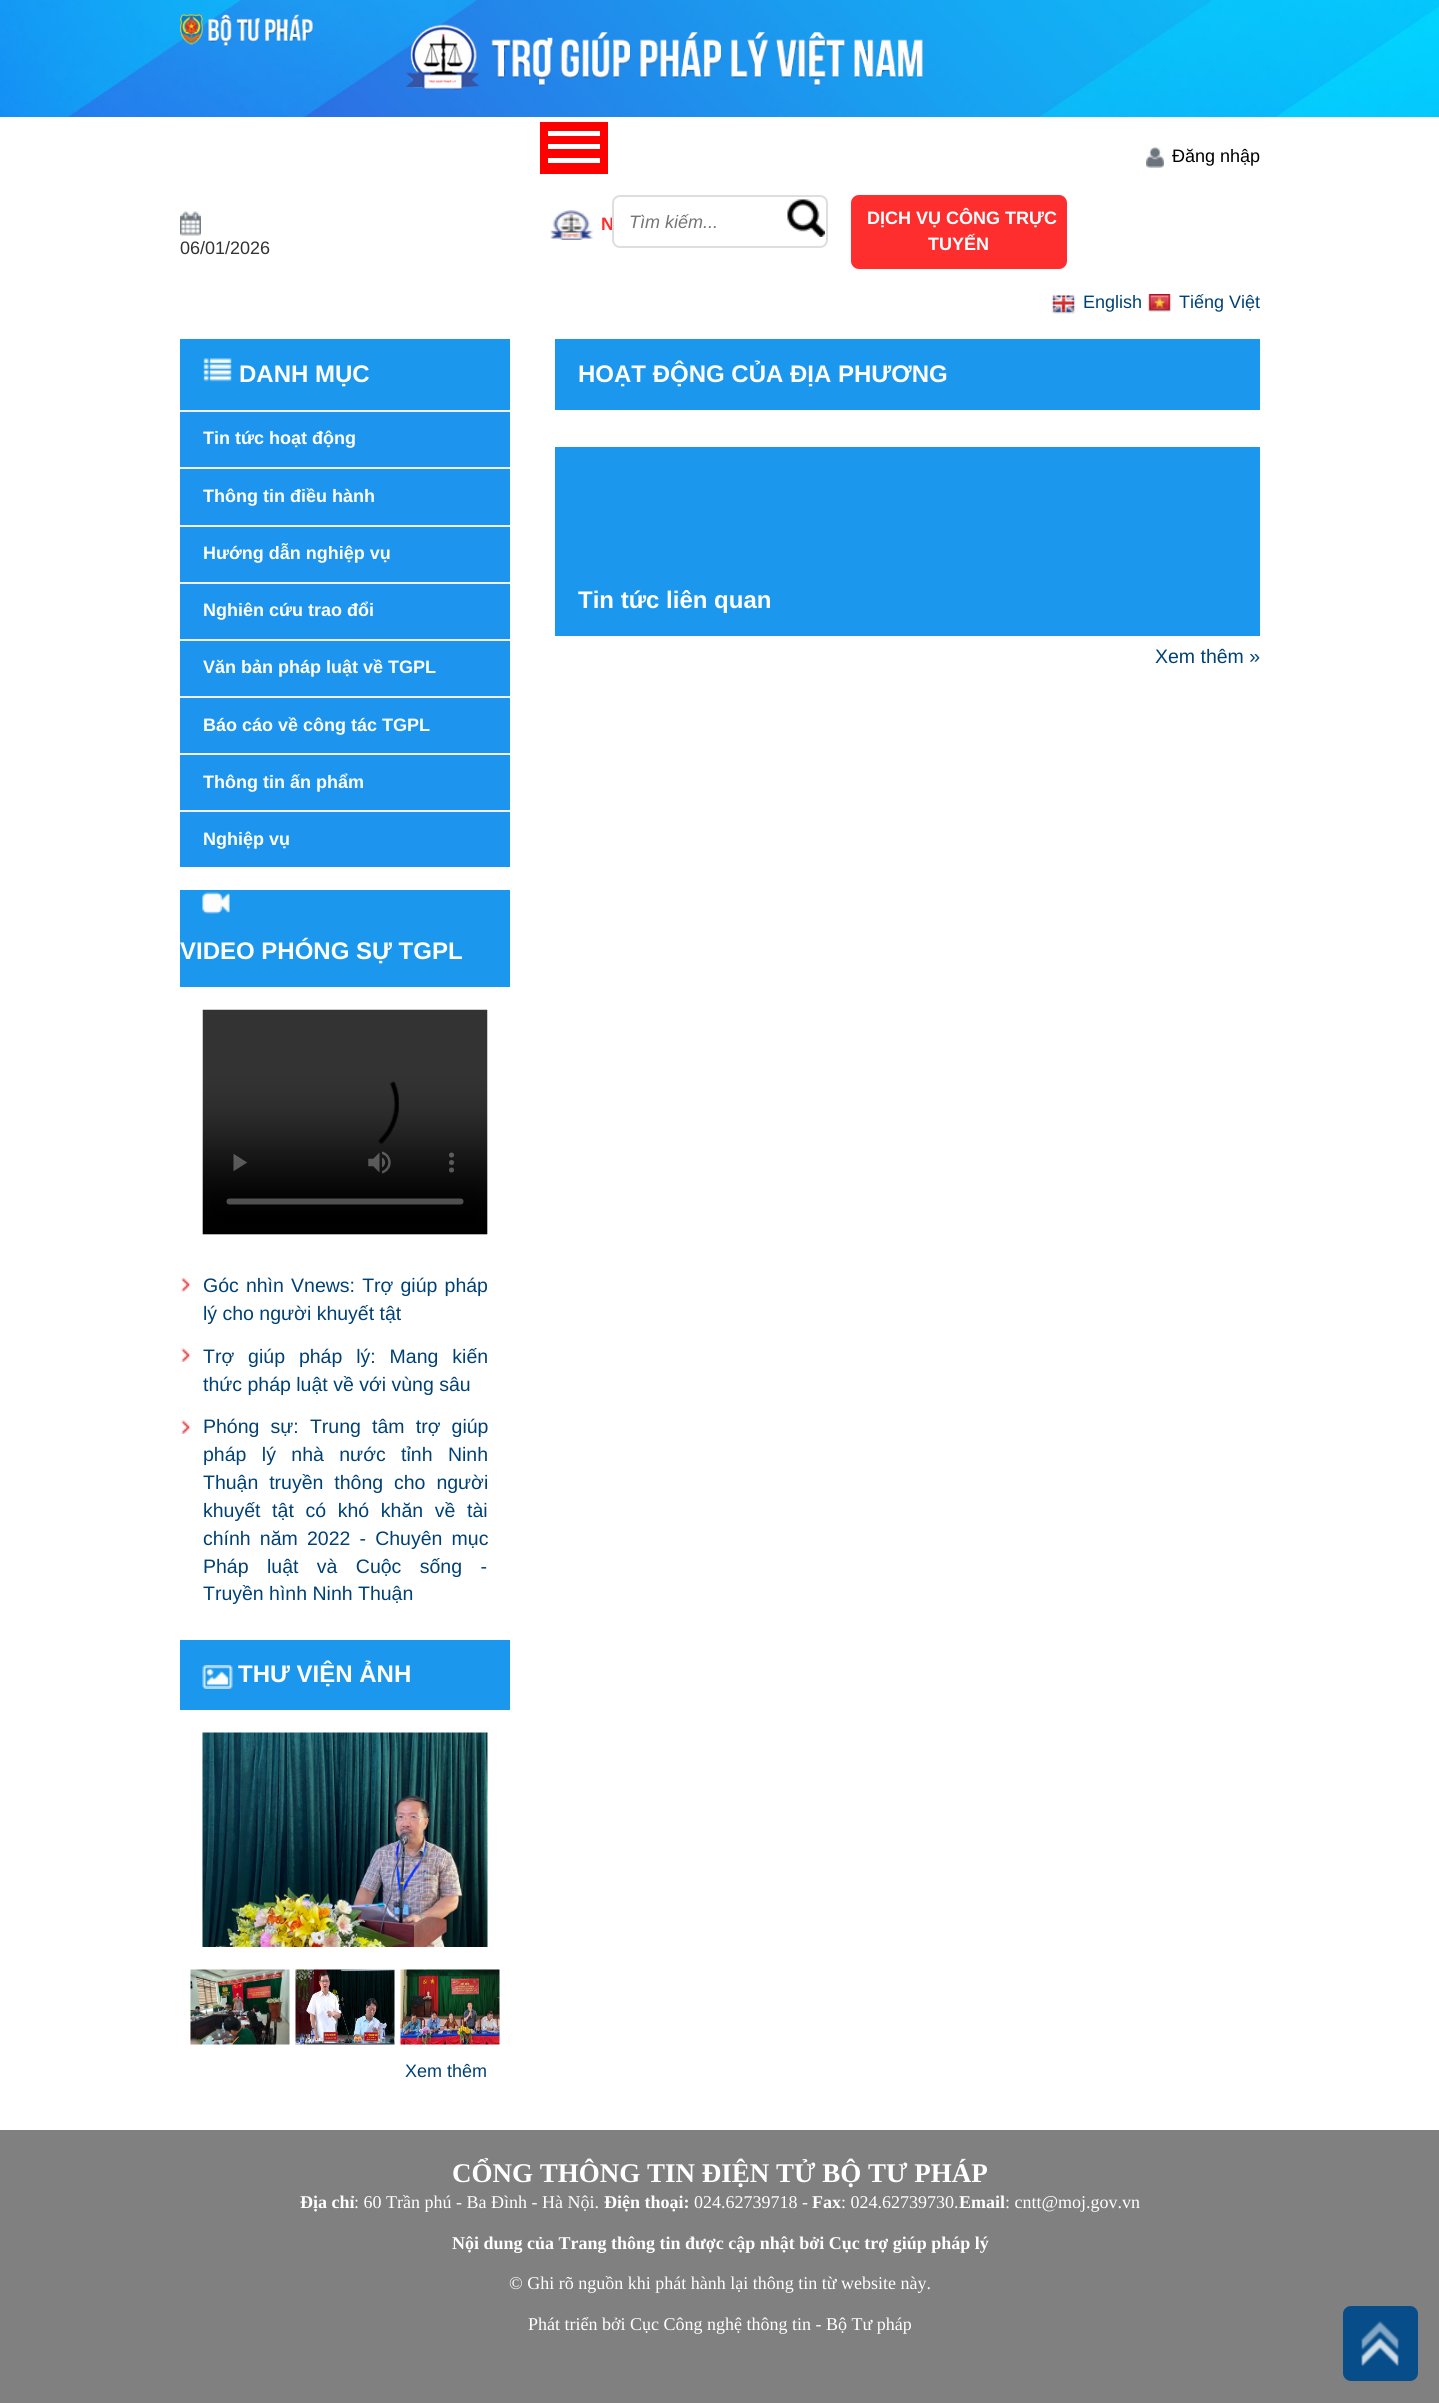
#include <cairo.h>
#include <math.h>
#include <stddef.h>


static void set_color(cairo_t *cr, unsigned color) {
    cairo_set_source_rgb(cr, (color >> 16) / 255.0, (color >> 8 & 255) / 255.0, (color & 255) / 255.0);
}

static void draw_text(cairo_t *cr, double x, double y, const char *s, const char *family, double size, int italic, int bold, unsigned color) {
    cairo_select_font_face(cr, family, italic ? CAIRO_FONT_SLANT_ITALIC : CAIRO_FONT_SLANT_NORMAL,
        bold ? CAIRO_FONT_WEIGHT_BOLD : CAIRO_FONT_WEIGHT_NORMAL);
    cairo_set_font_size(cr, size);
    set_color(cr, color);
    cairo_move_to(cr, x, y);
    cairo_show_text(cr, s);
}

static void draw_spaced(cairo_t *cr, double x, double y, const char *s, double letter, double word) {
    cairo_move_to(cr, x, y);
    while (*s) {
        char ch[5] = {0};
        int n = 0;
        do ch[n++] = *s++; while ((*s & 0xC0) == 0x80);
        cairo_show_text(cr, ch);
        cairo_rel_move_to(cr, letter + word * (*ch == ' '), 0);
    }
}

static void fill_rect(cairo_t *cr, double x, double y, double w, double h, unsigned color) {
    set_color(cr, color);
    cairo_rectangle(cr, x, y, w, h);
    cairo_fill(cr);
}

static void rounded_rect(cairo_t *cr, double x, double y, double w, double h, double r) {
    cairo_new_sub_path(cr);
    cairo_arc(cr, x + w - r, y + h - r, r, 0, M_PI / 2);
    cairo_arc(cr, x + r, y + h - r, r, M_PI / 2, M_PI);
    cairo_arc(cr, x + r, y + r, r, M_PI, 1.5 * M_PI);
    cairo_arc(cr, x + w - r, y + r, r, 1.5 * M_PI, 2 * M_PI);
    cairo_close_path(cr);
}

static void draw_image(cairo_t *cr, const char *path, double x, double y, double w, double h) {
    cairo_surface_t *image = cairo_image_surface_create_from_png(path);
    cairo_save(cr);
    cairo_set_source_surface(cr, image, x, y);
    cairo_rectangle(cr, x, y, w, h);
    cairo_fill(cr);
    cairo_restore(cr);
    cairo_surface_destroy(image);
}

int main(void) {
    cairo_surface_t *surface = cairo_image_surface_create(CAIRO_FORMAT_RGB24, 1439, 2403);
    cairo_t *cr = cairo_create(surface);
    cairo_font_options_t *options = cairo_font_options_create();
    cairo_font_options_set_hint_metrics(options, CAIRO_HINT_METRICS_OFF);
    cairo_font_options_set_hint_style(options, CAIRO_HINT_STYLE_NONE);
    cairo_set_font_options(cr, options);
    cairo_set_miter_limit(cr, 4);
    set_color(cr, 0xFFFFFF);
    cairo_paint(cr);
    draw_image(cr, "assets/img1.png", 0, 0, 1439, 117);
    draw_image(cr, "assets/img2.png", 180, 14, 743, 76);
    fill_rect(cr, 540, 122, 68, 52, 0xFF0000);
    fill_rect(cr, 548, 131, 52, 5, 0xFFFFFF);
    fill_rect(cr, 548, 144, 52, 5, 0xFFFFFF);
    fill_rect(cr, 548, 158, 52, 5, 0xFFFFFF);
    draw_image(cr, "assets/img3.png", 1146, 147, 18, 21);
    draw_text(cr, 1172, 162, "Đăng nhập", "Liberation Sans", 18, 0, 0, 0x000000);
    draw_image(cr, "assets/img4.png", 550, 210, 44, 30);
    draw_text(cr, 601, 230, "N", "Liberation Sans", 18, 0, 1, 0xFE2E2E);
    rounded_rect(cr, 613, 196, 214, 51, 7);
    set_color(cr, 0xDEDEDE);
    cairo_stroke(cr);
    draw_text(cr, 629, 228, "Tìm kiếm...", "Liberation Sans", 18, 1, 0, 0x757575);
    draw_image(cr, "assets/img5.png", 787, 199, 38, 38);
    set_color(cr, 0xFE2E2E);
    rounded_rect(cr, 851, 195, 216, 74, 8);
    cairo_fill(cr);
    draw_text(cr, 867, 224, "DỊCH VỤ CÔNG TRỰC", "Liberation Sans", 18, 0, 1, 0xFFFFFF);
    draw_text(cr, 928, 250, "TUYẾN", "Liberation Sans", 18, 0, 1, 0xFFFFFF);
    draw_image(cr, "assets/img6.png", 180, 211, 21, 25);
    draw_text(cr, 180, 254, "06/01/2026", "Liberation Sans", 18, 0, 0, 0x333333);
    draw_image(cr, "assets/img7.png", 1051, 294, 25, 20);
    draw_text(cr, 1083, 308, "English", "Liberation Sans", 18, 0, 0, 0x004175);
    draw_image(cr, "assets/img8.png", 1147, 294, 25, 18);
    draw_text(cr, 1179, 308, "Tiếng Việt", "Liberation Sans", 18, 0, 0, 0x004175);
    fill_rect(cr, 180, 339, 330, 71, 0x1B98EE);
    draw_image(cr, "assets/img9.png", 202, 358, 32, 24);
    draw_text(cr, 239, 382, "DANH MỤC", "Liberation Sans", 24, 0, 1, 0xFFFFFF);
    fill_rect(cr, 180, 412, 330, 455, 0x1D94ED);
    fill_rect(cr, 180, 410, 330, 2, 0xF5EEEE);
    draw_text(cr, 203, 444, "Tin tức hoạt động", "Liberation Sans", 18, 0, 1, 0xFFFFFF);
    fill_rect(cr, 180, 467, 330, 2, 0xF5EEEE);
    draw_text(cr, 203, 502, "Thông tin điều hành", "Liberation Sans", 18, 0, 1, 0xFFFFFF);
    fill_rect(cr, 180, 525, 330, 2, 0xF5EEEE);
    draw_text(cr, 203, 559, "Hướng dẫn nghiệp vụ", "Liberation Sans", 18, 0, 1, 0xFFFFFF);
    fill_rect(cr, 180, 582, 330, 2, 0xF5EEEE);
    draw_text(cr, 203, 616, "Nghiên cứu trao đổi", "Liberation Sans", 18, 0, 1, 0xFFFFFF);
    fill_rect(cr, 180, 639, 330, 2, 0xF5EEEE);
    draw_text(cr, 203, 673, "Văn bản pháp luật về TGPL", "Liberation Sans", 18, 0, 1, 0xFFFFFF);
    fill_rect(cr, 180, 696, 330, 2, 0xF5EEEE);
    draw_text(cr, 203, 731, "Báo cáo về công tác TGPL", "Liberation Sans", 18, 0, 1, 0xFFFFFF);
    fill_rect(cr, 180, 753, 330, 2, 0xF5EEEE);
    draw_text(cr, 203, 788, "Thông tin ấn phẩm", "Liberation Sans", 18, 0, 1, 0xFFFFFF);
    fill_rect(cr, 180, 810, 330, 2, 0xF5EEEE);
    draw_text(cr, 203, 845, "Nghiệp vụ", "Liberation Sans", 18, 0, 1, 0xFFFFFF);
    fill_rect(cr, 180, 890, 330, 97, 0x1B98EE);
    draw_image(cr, "assets/img10.png", 202, 892, 28, 22);
    draw_text(cr, 180, 959, "VIDEO PHÓNG SỰ TGPL", "Liberation Sans", 24, 0, 1, 0xFFFFFF);
    draw_image(cr, "assets/img11.png", 202, 1009, 286, 226);
    draw_image(cr, "assets/img12.png", 181, 1278, 11, 14);
    cairo_select_font_face(cr, "Liberation Sans", CAIRO_FONT_SLANT_NORMAL, CAIRO_FONT_WEIGHT_NORMAL);
    cairo_set_font_size(cr, 19.5);
    set_color(cr, 0x004175);
    draw_spaced(cr, 203, 1292, "Góc nhìn Vnews: Trợ giúp pháp", 0, 1.75);
    draw_text(cr, 203, 1320, "lý cho người khuyết tật", "Liberation Sans", 19.5, 0, 0, 0x004175);
    draw_image(cr, "assets/img13.png", 181, 1348, 11, 14);
    draw_spaced(cr, 203, 1363, "Trợ giúp pháp lý: Mang kiến", 0, 8.5);
    draw_text(cr, 203, 1391, "thức pháp luật về với vùng sâu", "Liberation Sans", 19.5, 0, 0, 0x004175);
    draw_image(cr, "assets/img13.png", 181, 1420, 11, 14);
    draw_spaced(cr, 203, 1433, "Phóng sự: Trung tâm trợ giúp", 0, 5.75);
    draw_spaced(cr, 203, 1461, "pháp lý nhà nước tỉnh Ninh", 0, 10);
    draw_spaced(cr, 203, 1489, "Thuận truyền thông cho người", 0, 5.5);
    draw_spaced(cr, 203, 1517, "khuyết tật có khó khăn về tài", 0, 6.25);
    draw_spaced(cr, 203, 1545, "chính năm 2022 - Chuyên mục", 0, 3.75);
    draw_spaced(cr, 203, 1573, "Pháp luật và Cuộc sống -", 0, 13);
    draw_text(cr, 203, 1600, "Truyền hình Ninh Thuận", "Liberation Sans", 19.5, 0, 0, 0x004175);
    fill_rect(cr, 180, 1640, 330, 70, 0x1B98EE);
    draw_image(cr, "assets/img14.png", 202, 1665, 31, 24);
    draw_text(cr, 238, 1682, "THƯ VIỆN ẢNH", "Liberation Sans", 24, 0, 1, 0xFFFFFF);
    draw_image(cr, "assets/img15.png", 202, 1732, 286, 215);
    draw_image(cr, "assets/img16.png", 190, 1969, 100, 76);
    draw_image(cr, "assets/img17.png", 295, 1969, 100, 76);
    draw_image(cr, "assets/img18.png", 400, 1969, 100, 76);
    draw_text(cr, 405, 2077, "Xem thêm", "Liberation Sans", 18, 0, 0, 0x004175);
    fill_rect(cr, 555, 339, 705, 71, 0x1B98EE);
    draw_text(cr, 578, 382, "HOẠT ĐỘNG CỦA ĐỊA PHƯƠNG", "Liberation Sans", 24, 0, 1, 0xFFFFFF);
    fill_rect(cr, 555, 447, 705, 189, 0x1B98EE);
    draw_text(cr, 578, 608, "Tin tức liên quan", "Liberation Sans", 24, 0, 1, 0xFFFFFF);
    draw_text(cr, 1155, 663, "Xem thêm »", "Liberation Sans", 19.5, 0, 0, 0x004175);
    fill_rect(cr, 0, 2130, 1439, 273, 0x808080);
    draw_text(cr, 452, 2182, "CỔNG THÔNG TIN ĐIỆN TỬ BỘ TƯ PHÁP", "Liberation Serif", 27, 0, 1, 0xFFFFFF);
    draw_text(cr, 300, 2208, "Địa chỉ", "Liberation Serif", 18, 0, 1, 0xFFFFFF);
    draw_text(cr, 354, 2208, ": 60 Trần phú - Ba Đình - Hà Nội.", "Liberation Serif", 18, 0, 0, 0xFFFFFF);
    draw_text(cr, 604, 2208, "Điện thoại:", "Liberation Serif", 18, 0, 1, 0xFFFFFF);
    draw_text(cr, 694, 2208, "024.62739718 -", "Liberation Serif", 18, 0, 0, 0xFFFFFF);
    draw_text(cr, 812, 2208, "Fax", "Liberation Serif", 18, 0, 1, 0xFFFFFF);
    draw_text(cr, 841, 2208, ": 024.62739730.", "Liberation Serif", 18, 0, 0, 0xFFFFFF);
    draw_text(cr, 959, 2208, "Email", "Liberation Serif", 18, 0, 1, 0xFFFFFF);
    draw_text(cr, 1005, 2208, ": cntt@moj.gov.vn", "Liberation Serif", 18, 0, 0, 0xFFFFFF);
    draw_text(cr, 452, 2249, "Nội dung của Trang thông tin được cập nhật bởi Cục trợ giúp pháp lý", "Liberation Serif", 18, 0, 1, 0xFFFFFF);
    draw_text(cr, 509, 2289, "© Ghi rõ nguồn khi phát hành lại thông tin từ website này.", "Liberation Serif", 18, 0, 0, 0xFFFFFF);
    draw_text(cr, 528, 2330, "Phát triển bởi Cục Công nghệ thông tin - Bộ Tư pháp", "Liberation Serif", 18, 0, 0, 0xFFFFFF);
    set_color(cr, 0x074D89);
    rounded_rect(cr, 1343, 2306, 75, 75, 8);
    cairo_fill(cr);
    draw_image(cr, "assets/img19.png", 1361, 2321, 38, 45);
    cairo_surface_write_to_png(surface, "output.png");
    cairo_font_options_destroy(options);
    cairo_destroy(cr);
    cairo_surface_destroy(surface);
    return 0;
}
